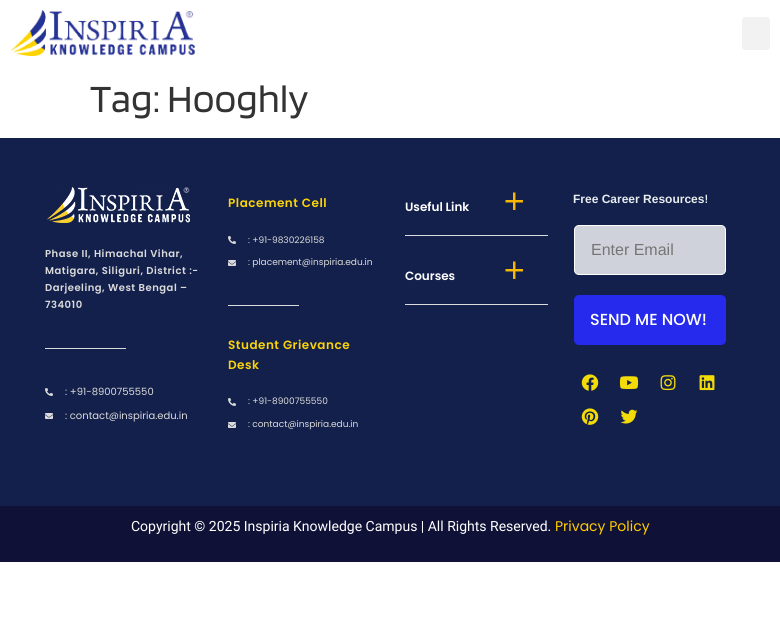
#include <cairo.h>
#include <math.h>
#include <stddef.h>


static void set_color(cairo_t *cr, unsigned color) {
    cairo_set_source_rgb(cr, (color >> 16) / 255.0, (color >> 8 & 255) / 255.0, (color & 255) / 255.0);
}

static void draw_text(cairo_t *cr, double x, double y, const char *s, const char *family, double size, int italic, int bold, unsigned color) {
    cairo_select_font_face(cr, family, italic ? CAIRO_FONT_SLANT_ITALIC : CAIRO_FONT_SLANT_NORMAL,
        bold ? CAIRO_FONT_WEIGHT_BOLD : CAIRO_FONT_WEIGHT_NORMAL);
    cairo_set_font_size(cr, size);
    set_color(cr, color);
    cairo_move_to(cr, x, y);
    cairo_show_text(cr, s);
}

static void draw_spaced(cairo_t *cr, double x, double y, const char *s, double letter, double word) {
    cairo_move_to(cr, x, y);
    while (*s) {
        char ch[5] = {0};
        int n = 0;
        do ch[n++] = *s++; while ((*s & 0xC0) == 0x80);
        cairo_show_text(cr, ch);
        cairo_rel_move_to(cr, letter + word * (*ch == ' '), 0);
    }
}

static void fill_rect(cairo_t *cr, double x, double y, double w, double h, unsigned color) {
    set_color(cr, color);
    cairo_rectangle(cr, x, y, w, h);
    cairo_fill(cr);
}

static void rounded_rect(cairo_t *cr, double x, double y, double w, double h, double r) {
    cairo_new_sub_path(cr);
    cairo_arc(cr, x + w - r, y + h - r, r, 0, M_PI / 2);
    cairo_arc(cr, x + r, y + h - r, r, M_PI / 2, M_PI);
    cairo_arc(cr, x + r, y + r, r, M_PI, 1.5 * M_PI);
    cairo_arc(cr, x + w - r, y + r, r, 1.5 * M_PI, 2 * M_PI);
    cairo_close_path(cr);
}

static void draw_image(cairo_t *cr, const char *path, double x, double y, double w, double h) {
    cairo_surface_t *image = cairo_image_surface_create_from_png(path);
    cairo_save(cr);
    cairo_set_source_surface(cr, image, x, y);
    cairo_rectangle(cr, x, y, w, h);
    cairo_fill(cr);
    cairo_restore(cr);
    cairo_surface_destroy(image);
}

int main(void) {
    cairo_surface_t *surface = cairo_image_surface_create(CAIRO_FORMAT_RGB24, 780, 643);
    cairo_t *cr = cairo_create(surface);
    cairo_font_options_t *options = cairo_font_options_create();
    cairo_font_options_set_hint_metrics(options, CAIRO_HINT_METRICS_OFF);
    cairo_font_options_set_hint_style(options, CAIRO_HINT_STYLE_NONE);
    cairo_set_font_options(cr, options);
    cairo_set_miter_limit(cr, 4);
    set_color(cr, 0xFFFFFF);
    cairo_paint(cr);
    draw_image(cr, "assets/img1.png", 10, 10, 185, 46);
    set_color(cr, 0xF2F2F2);
    rounded_rect(cr, 742, 17, 28, 33, 3);
    cairo_fill(cr);
    draw_text(cr, 90, 112, "Tag: Hooghly", "Blinker", 40, 0, 0, 0x333333);
    fill_rect(cr, 0, 138, 780, 368, 0x13204B);
    cairo_select_font_face(cr, "Poppins SemiBold", CAIRO_FONT_SLANT_NORMAL, CAIRO_FONT_WEIGHT_NORMAL);
    cairo_set_font_size(cr, 12);
    set_color(cr, 0xFAD309);
    draw_spaced(cr, 228, 207, "Placement Cell", 0.5, 0);
    draw_image(cr, "assets/img2.png", 228, 236, 8, 8);
    draw_text(cr, 248, 243, ": +91-9830226158", "Poppins", 9, 0, 0, 0xDBDBDB);
    draw_image(cr, "assets/img3.png", 228, 260, 8, 6);
    draw_text(cr, 248, 265, ": placement@inspiria.edu.in", "Poppins", 9, 0, 0, 0xDBDBDB);
    fill_rect(cr, 228, 305, 71, 1, 0xDBDBDB);
    cairo_select_font_face(cr, "Poppins SemiBold", CAIRO_FONT_SLANT_NORMAL, CAIRO_FONT_WEIGHT_NORMAL);
    cairo_set_font_size(cr, 12);
    set_color(cr, 0xFAD309);
    draw_spaced(cr, 228, 349, "Student Grievance", 0.5, 0);
    draw_spaced(cr, 228, 369, "Desk", 0.5, 0);
    draw_image(cr, "assets/img2.png", 228, 398, 8, 8);
    draw_text(cr, 248, 404, ": +91-8900755550", "Poppins", 9, 0, 0, 0xDBDBDB);
    draw_image(cr, "assets/img3.png", 228, 422, 8, 6);
    draw_text(cr, 248, 427, ": contact@inspiria.edu.in", "Poppins", 9, 0, 0, 0xDBDBDB);
    fill_rect(cr, 405, 235, 143, 1, 0xDBDBDB);
    draw_text(cr, 405, 211, "Useful Link", "Poppins SemiBold", 12, 0, 0, 0xFFFFFF);
    draw_image(cr, "assets/img4.png", 505, 192, 18, 18);
    fill_rect(cr, 405, 304, 143, 1, 0xDBDBDB);
    draw_text(cr, 405, 280, "Courses", "Poppins SemiBold", 12, 0, 0, 0xFFFFFF);
    draw_image(cr, "assets/img4.png", 505, 261, 18, 18);
    draw_text(cr, 573, 203, "Free Career Resources!", "Liberation Sans", 12, 0, 1, 0xE7ECEF);
    set_color(cr, 0xD0D2DB);
    rounded_rect(cr, 574.5, 225.5, 151, 49, 4.5);
    cairo_fill_preserve(cr);
    set_color(cr, 0xFFFFFF);
    cairo_set_line_width(cr, 1);
    cairo_stroke(cr);
    draw_text(cr, 591, 255, "Enter Email", "Liberation Sans", 16, 0, 0, 0x757575);
    set_color(cr, 0x252AEC);
    rounded_rect(cr, 574, 295, 152, 50, 5);
    cairo_fill(cr);
    draw_text(cr, 590, 325, "SEND ME NOW!", "Poppins Medium", 16, 0, 0, 0xFFFFFF);
    draw_image(cr, "assets/img5.png", 581, 374, 18, 17);
    draw_image(cr, "assets/img6.png", 619, 376, 20, 13);
    draw_image(cr, "assets/img7.png", 660, 375, 16, 16);
    draw_image(cr, "assets/img8.png", 699, 375, 16, 16);
    draw_image(cr, "assets/img9.png", 581, 408, 18, 17);
    draw_image(cr, "assets/img10.png", 620, 409, 18, 15);
    draw_image(cr, "assets/img11.png", 47, 187, 143, 36);
    cairo_select_font_face(cr, "Poppins SemiBold", CAIRO_FONT_SLANT_NORMAL, CAIRO_FONT_WEIGHT_NORMAL);
    cairo_set_font_size(cr, 10);
    set_color(cr, 0xDBDBDB);
    draw_spaced(cr, 45, 257, "Phase II, Himachal Vihar,", 0.5, 0);
    draw_spaced(cr, 45, 274, "Matigara, Siliguri, District :-", 0.5, 0);
    draw_spaced(cr, 45, 291, "Darjeeling, West Bengal –", 0.5, 0);
    draw_spaced(cr, 45, 308, "734010", 0.5, 0);
    fill_rect(cr, 45, 348, 81, 1, 0xDBDBDB);
    draw_image(cr, "assets/img2.png", 45, 388, 8, 8);
    draw_text(cr, 65, 395, ": +91-8900755550", "Poppins", 10, 0, 0, 0xDBDBDB);
    draw_image(cr, "assets/img3.png", 45, 413, 8, 6);
    draw_text(cr, 65, 419, ": contact@inspiria.edu.in", "Poppins", 10, 0, 0, 0xDBDBDB);
    fill_rect(cr, 0, 506, 780, 56, 0x0F1136);
    draw_text(cr, 131, 531, "Copyright © 2025 Inspiria Knowledge Campus | All Rights Reserved.", "Roboto", 14, 0, 0, 0xFFFFFF);
    draw_text(cr, 555, 531, "Privacy Policy", "Poppins", 14, 0, 0, 0xFFCC00);
    cairo_surface_write_to_png(surface, "output.png");
    cairo_font_options_destroy(options);
    cairo_destroy(cr);
    cairo_surface_destroy(surface);
    return 0;
}
